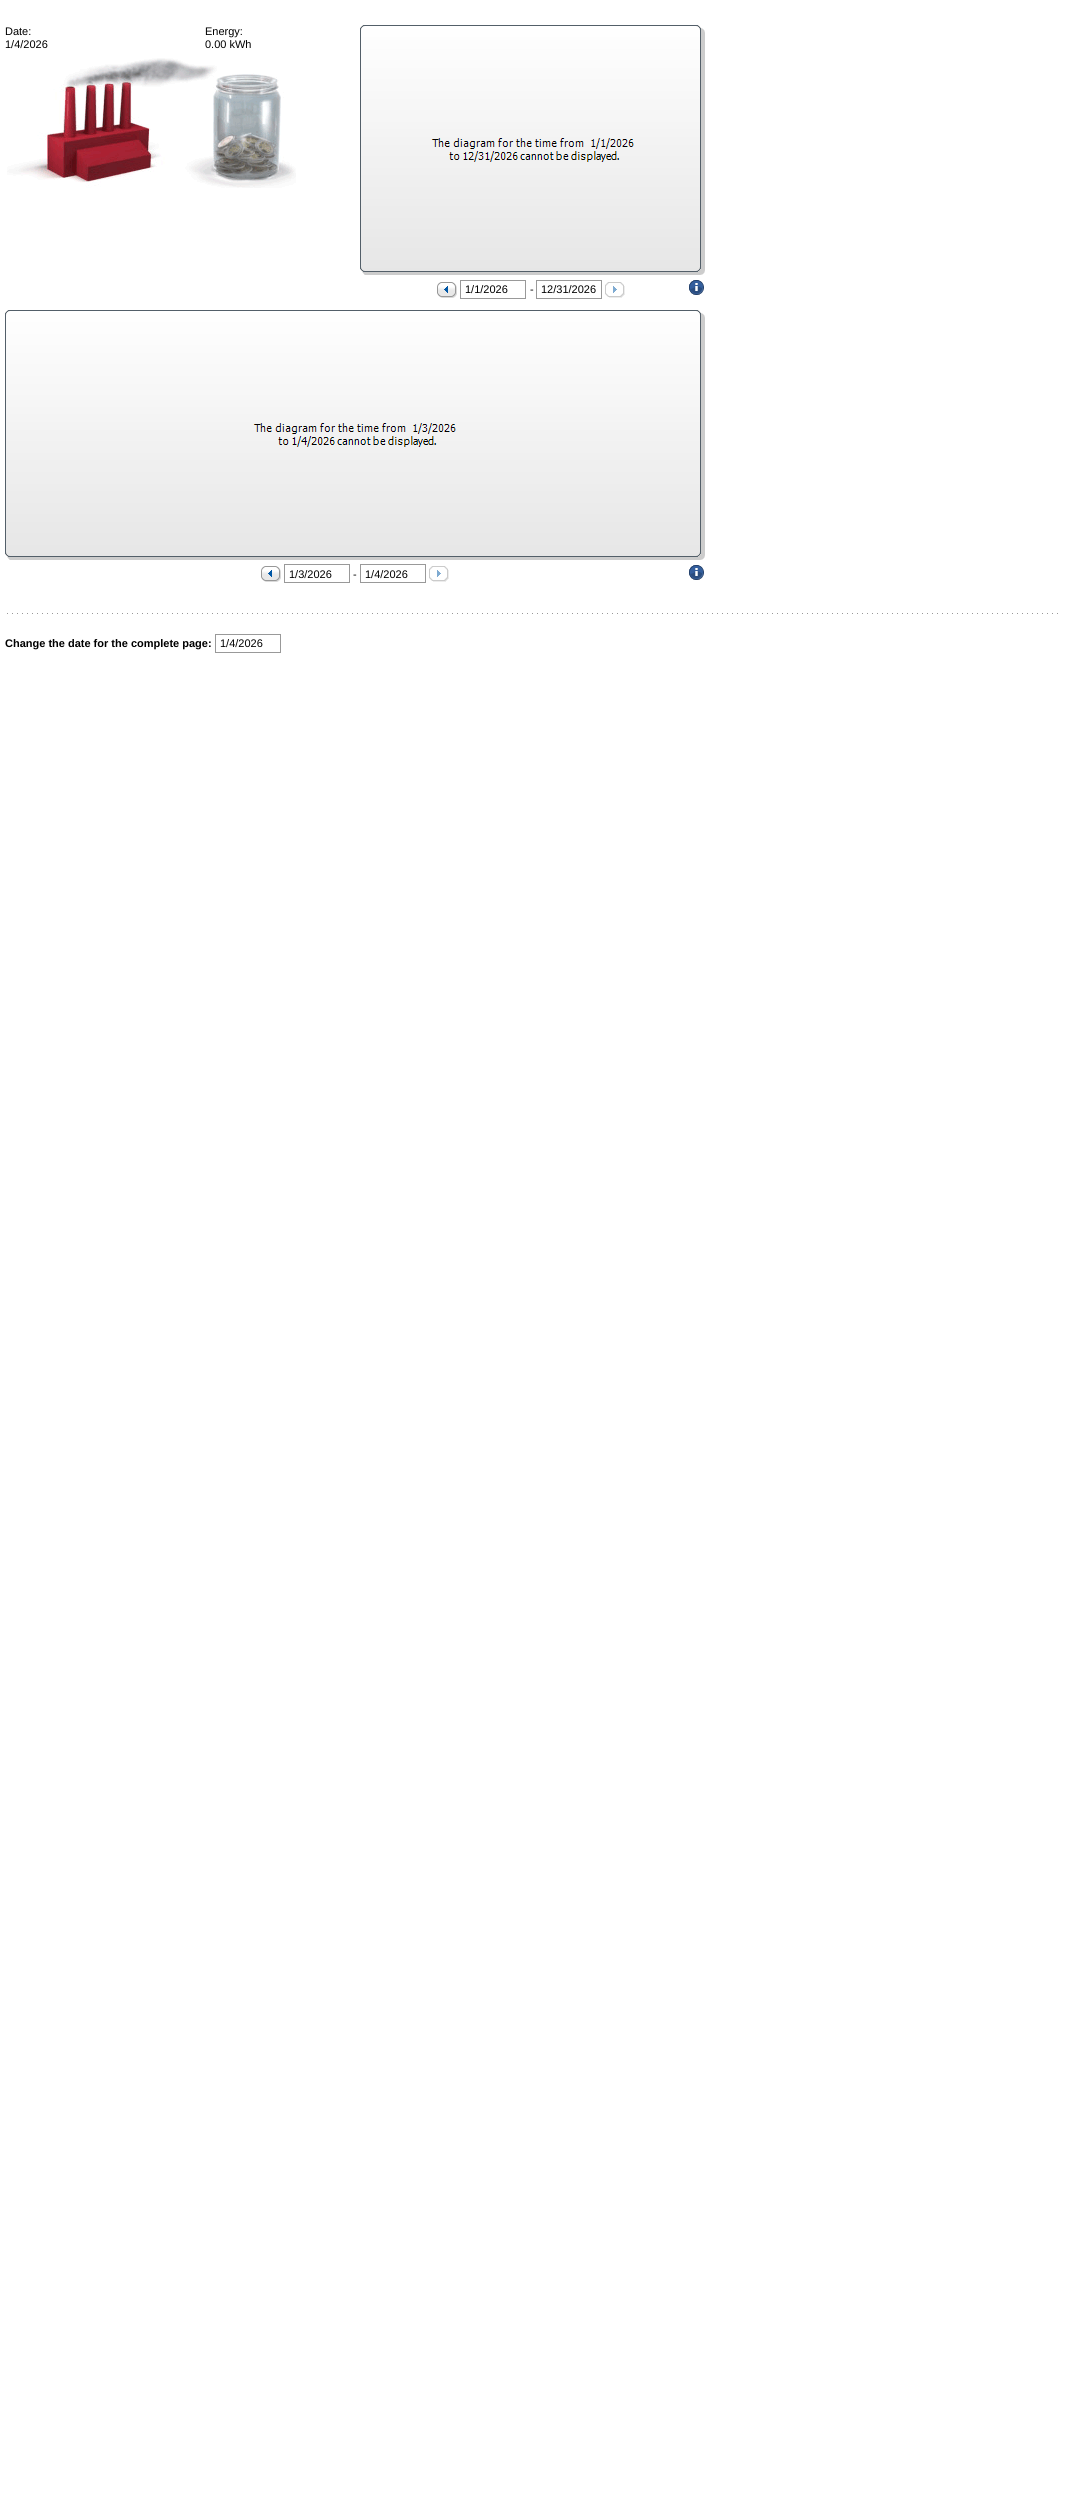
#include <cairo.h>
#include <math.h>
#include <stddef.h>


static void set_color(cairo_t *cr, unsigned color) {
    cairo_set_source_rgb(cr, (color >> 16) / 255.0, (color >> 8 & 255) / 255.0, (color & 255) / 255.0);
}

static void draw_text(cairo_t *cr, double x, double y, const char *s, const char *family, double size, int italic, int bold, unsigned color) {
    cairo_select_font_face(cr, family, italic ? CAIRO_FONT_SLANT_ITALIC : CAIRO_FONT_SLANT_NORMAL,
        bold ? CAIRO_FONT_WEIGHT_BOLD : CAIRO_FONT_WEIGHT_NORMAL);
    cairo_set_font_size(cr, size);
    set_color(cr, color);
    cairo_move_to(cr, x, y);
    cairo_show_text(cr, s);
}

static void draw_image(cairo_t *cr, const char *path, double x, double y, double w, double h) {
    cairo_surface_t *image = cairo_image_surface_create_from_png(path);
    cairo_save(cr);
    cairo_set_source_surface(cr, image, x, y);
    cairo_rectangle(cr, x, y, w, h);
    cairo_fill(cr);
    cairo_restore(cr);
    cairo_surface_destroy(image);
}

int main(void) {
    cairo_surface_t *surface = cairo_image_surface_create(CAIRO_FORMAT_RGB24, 1066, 2498);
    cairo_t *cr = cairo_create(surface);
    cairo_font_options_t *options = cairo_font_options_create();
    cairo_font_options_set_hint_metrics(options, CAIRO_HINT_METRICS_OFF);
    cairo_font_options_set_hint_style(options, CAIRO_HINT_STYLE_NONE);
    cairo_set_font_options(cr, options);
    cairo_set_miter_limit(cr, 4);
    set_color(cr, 0xFFFFFF);
    cairo_paint(cr);
    draw_text(cr, 5, 35, "Date:", "Liberation Sans", 11, 0, 0, 0x000000);
    draw_text(cr, 5, 48, "1/4/2026", "Liberation Sans", 11, 0, 0, 0x000000);
    draw_text(cr, 205, 35, "Energy:", "Liberation Sans", 11, 0, 0, 0x000000);
    draw_text(cr, 205, 48, "0.00 kWh", "Liberation Sans", 11, 0, 0, 0x000000);
    draw_image(cr, "assets/img1.png", 7, 58, 289, 130);
    draw_image(cr, "assets/img2.png", 360, 25, 345, 250);
    draw_image(cr, "assets/img3.png", 437, 282, 20, 16);
    cairo_rectangle(cr, 460.5, 280.5, 65, 18);
    set_color(cr, 0x999999);
    cairo_set_line_width(cr, 1);
    cairo_stroke(cr);
    draw_text(cr, 465, 293, "1/1/2026", "Liberation Sans", 11, 0, 0, 0x000000);
    draw_text(cr, 530, 293, "-", "Liberation Sans", 11, 0, 0, 0x000000);
    cairo_rectangle(cr, 536.5, 280.5, 65, 18);
    set_color(cr, 0x999999);
    cairo_stroke(cr);
    draw_text(cr, 541, 293, "12/31/2026", "Liberation Sans", 11, 0, 0, 0x000000);
    draw_image(cr, "assets/img4.png", 605, 282, 20, 16);
    draw_image(cr, "assets/img5.png", 689, 280, 15, 15);
    draw_image(cr, "assets/img6.png", 5, 310, 700, 250);
    draw_image(cr, "assets/img3.png", 261, 566, 20, 16);
    cairo_rectangle(cr, 284.5, 564.5, 65, 18);
    set_color(cr, 0x999999);
    cairo_stroke(cr);
    draw_text(cr, 289, 578, "1/3/2026", "Liberation Sans", 11, 0, 0, 0x000000);
    draw_text(cr, 353, 578, "-", "Liberation Sans", 11, 0, 0, 0x000000);
    cairo_rectangle(cr, 360.5, 564.5, 65, 18);
    set_color(cr, 0x999999);
    cairo_stroke(cr);
    draw_text(cr, 365, 578, "1/4/2026", "Liberation Sans", 11, 0, 0, 0x000000);
    draw_image(cr, "assets/img4.png", 429, 566, 20, 16);
    draw_image(cr, "assets/img5.png", 689, 565, 15, 15);
    draw_image(cr, "assets/img7.png", 7, 613, 1051, 1);
    draw_text(cr, 5, 647, "Change the date for the complete page:", "Liberation Sans", 11, 0, 1, 0x000000);
    cairo_rectangle(cr, 215.5, 634.5, 65, 18);
    set_color(cr, 0x999999);
    cairo_stroke(cr);
    draw_text(cr, 220, 647, "1/4/2026", "Liberation Sans", 11, 0, 0, 0x000000);
    cairo_surface_write_to_png(surface, "output.png");
    cairo_font_options_destroy(options);
    cairo_destroy(cr);
    cairo_surface_destroy(surface);
    return 0;
}
